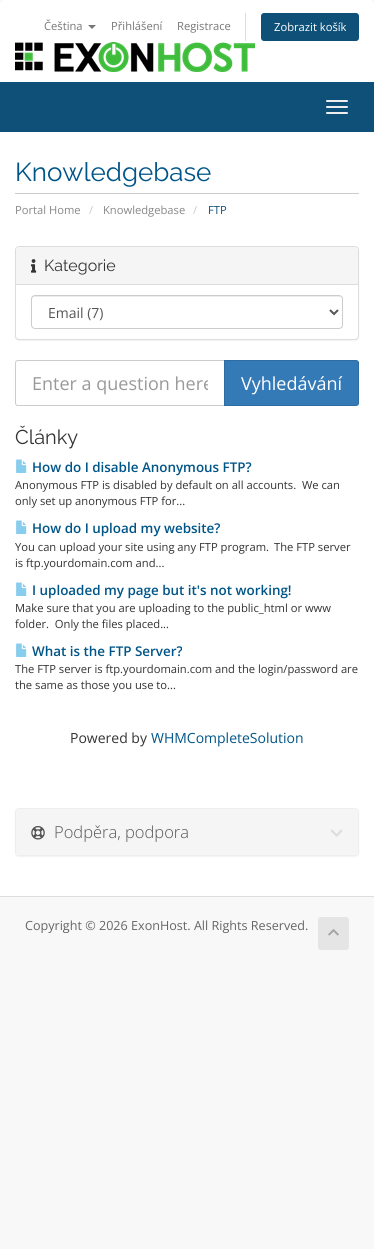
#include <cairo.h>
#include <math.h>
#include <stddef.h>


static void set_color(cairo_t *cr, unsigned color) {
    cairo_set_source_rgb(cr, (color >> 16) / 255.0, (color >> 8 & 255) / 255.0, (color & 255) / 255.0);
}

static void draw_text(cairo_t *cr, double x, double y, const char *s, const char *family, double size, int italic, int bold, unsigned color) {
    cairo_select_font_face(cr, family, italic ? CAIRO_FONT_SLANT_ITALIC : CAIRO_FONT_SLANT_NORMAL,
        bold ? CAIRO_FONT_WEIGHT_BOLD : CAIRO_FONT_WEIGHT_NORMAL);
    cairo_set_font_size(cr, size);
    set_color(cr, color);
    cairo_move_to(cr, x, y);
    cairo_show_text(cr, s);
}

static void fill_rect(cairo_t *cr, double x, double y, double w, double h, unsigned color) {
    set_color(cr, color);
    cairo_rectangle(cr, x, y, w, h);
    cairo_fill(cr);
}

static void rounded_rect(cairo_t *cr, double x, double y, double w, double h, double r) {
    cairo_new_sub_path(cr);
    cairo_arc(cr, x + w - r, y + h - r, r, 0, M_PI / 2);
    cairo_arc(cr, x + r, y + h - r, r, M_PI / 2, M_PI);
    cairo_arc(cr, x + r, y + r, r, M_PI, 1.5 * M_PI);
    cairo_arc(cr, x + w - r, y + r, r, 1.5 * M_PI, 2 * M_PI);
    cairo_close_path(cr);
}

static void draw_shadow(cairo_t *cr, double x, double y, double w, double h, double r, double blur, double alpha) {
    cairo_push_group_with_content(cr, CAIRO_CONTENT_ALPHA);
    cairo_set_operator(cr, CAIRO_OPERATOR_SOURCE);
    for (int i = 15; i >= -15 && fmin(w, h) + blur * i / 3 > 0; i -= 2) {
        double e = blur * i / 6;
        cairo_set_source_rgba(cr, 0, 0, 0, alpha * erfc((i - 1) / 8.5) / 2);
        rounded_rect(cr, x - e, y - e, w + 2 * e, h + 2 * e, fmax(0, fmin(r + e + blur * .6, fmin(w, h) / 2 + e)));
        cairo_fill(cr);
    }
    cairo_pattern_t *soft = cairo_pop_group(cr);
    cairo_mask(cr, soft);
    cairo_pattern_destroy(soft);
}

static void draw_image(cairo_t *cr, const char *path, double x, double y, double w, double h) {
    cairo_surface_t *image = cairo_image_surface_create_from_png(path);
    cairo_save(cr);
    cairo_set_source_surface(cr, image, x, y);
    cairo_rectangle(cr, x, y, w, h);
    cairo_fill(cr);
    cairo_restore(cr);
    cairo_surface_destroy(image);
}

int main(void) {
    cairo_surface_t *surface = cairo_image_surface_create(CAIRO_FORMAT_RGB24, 374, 1249);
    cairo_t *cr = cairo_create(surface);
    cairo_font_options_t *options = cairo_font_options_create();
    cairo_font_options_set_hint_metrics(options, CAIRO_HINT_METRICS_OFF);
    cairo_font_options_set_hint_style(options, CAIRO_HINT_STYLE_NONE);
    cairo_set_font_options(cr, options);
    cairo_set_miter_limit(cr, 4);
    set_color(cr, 0xF8F8F8);
    cairo_paint(cr);
    set_color(cr, 0xFFFFFF);
    cairo_new_path(cr);
    cairo_move_to(cr, 5, 0);
    cairo_line_to(cr, 369, 0);
    cairo_curve_to(cr, 372, 0, 374, 2, 374, 5);
    cairo_line_to(cr, 374, 82);
    cairo_line_to(cr, 0, 82);
    cairo_line_to(cr, 0, 5);
    cairo_curve_to(cr, 0, 2, 2, 0, 5, 0);
    cairo_close_path(cr);
    cairo_fill(cr);
    draw_text(cr, 44, 30, "Čeština", "Open Sans", 11.2, 0, 0, 0x777777);
    cairo_new_path(cr);
    cairo_move_to(cr, 88, 25);
    cairo_line_to(cr, 96, 25);
    cairo_line_to(cr, 92, 29);
    cairo_close_path(cr);
    cairo_fill(cr);
    draw_text(cr, 111, 30, "Přihlášení", "Open Sans", 11.2, 0, 0, 0x777777);
    draw_text(cr, 177, 30, "Registrace", "Open Sans", 11.2, 0, 0, 0x777777);
    fill_rect(cr, 245, 13, 1, 28, 0xDDDDDD);
    set_color(cr, 0x0E5077);
    rounded_rect(cr, 261, 13, 98, 28, 3);
    cairo_fill(cr);
    draw_text(cr, 274, 31, "Zobrazit košík", "Open Sans", 11.2, 0, 0, 0xFFFFFF);
    draw_image(cr, "assets/img1.png", 15, 42, 240, 30);
    fill_rect(cr, 0, 82, 374, 50, 0x0E5077);
    set_color(cr, 0xEEEEEE);
    rounded_rect(cr, 326, 100, 22, 2, 1);
    cairo_fill(cr);
    rounded_rect(cr, 326, 106, 22, 2, 1);
    cairo_fill(cr);
    rounded_rect(cr, 326, 112, 22, 2, 1);
    cairo_fill(cr);
    fill_rect(cr, 0, 132, 374, 764, 0xFFFFFF);
    fill_rect(cr, 15, 193, 344, 1, 0xCCCCCC);
    draw_text(cr, 15, 181, "Knowledgebase", "Raleway", 26, 0, 0, 0x005588);
    draw_text(cr, 15, 214, "Portal Home", "Open Sans", 11.2, 0, 0, 0x888888);
    draw_text(cr, 89, 214, "/", "Open Sans", 11.2, 0, 0, 0xCCCCCC);
    draw_text(cr, 103, 214, "Knowledgebase", "Open Sans", 11.2, 0, 0, 0x888888);
    draw_text(cr, 193, 214, "/", "Open Sans", 11.2, 0, 0, 0xCCCCCC);
    draw_text(cr, 208, 214, "FTP", "Open Sans", 11.2, 0, 0, 0x0E5077);
    set_color(cr, 0x000000);
    draw_shadow(cr, 15, 247, 344, 94, 4, 0.5, 0.05);
    set_color(cr, 0xFFFFFF);
    rounded_rect(cr, 15.5, 246.5, 343, 93, 3.5);
    cairo_fill_preserve(cr);
    set_color(cr, 0xDDDDDD);
    cairo_set_line_width(cr, 1);
    cairo_stroke(cr);
    set_color(cr, 0xF5F5F5);
    cairo_new_path(cr);
    cairo_move_to(cr, 19, 247);
    cairo_line_to(cr, 355, 247);
    cairo_curve_to(cr, 356.5, 247, 358, 248.5, 358, 250);
    cairo_line_to(cr, 358, 285);
    cairo_line_to(cr, 16, 285);
    cairo_line_to(cr, 16, 250);
    cairo_curve_to(cr, 16, 248.5, 17.5, 247, 19, 247);
    cairo_close_path(cr);
    cairo_fill(cr);
    fill_rect(cr, 16, 284, 342, 1, 0xDDDDDD);
    draw_image(cr, "assets/img2.png", 31, 259, 6, 14);
    draw_text(cr, 44, 271, "Kategorie", "Raleway", 16, 0, 0, 0x333333);
    set_color(cr, 0xECECEC);
    cairo_new_path(cr);
    cairo_move_to(cr, 35, 297);
    cairo_line_to(cr, 339, 297);
    cairo_curve_to(cr, 341, 297, 342, 298, 342, 300);
    cairo_line_to(cr, 341, 297);
    cairo_line_to(cr, 340, 296);
    cairo_line_to(cr, 35, 296);
    cairo_curve_to(cr, 33, 296, 32, 298, 32, 300);
    cairo_curve_to(cr, 32, 298, 33, 297, 35, 297);
    cairo_close_path(cr);
    cairo_fill(cr);
    rounded_rect(cr, 31.5, 295.5, 311, 33, 3.5);
    set_color(cr, 0xCCCCCC);
    cairo_stroke(cr);
    cairo_new_path(cr);
    cairo_move_to(cr, 330, 310);
    cairo_line_to(cr, 334, 314);
    cairo_line_to(cr, 338, 310);
    set_color(cr, 0x555555);
    cairo_set_line_width(cr, 2);
    cairo_stroke(cr);
    draw_text(cr, 48, 318, "Email (7)", "Open Sans", 14, 0, 0, 0x555555);
    cairo_new_path(cr);
    cairo_move_to(cr, 18, 360.5);
    cairo_line_to(cr, 224.5, 360.5);
    cairo_line_to(cr, 224.5, 405.5);
    cairo_line_to(cr, 18, 405.5);
    cairo_curve_to(cr, 16.5, 405.5, 15.5, 404.5, 15.5, 403);
    cairo_line_to(cr, 15.5, 363);
    cairo_curve_to(cr, 15.5, 361.5, 16.5, 360.5, 18, 360.5);
    cairo_close_path(cr);
    set_color(cr, 0xCCCCCC);
    cairo_set_line_width(cr, 1);
    cairo_stroke(cr);
    cairo_save(cr);
    cairo_rectangle(cr, 32, 371, 176, 24);
    cairo_clip(cr);
    draw_text(cr, 32, 390, "Enter a question here", "Open Sans", 18, 0, 0, 0x999999);
    cairo_restore(cr);
    set_color(cr, 0x337AB7);
    cairo_new_path(cr);
    cairo_move_to(cr, 224.5, 360.5);
    cairo_line_to(cr, 356, 360.5);
    cairo_curve_to(cr, 357.5, 360.5, 358.5, 361.5, 358.5, 363);
    cairo_line_to(cr, 358.5, 403);
    cairo_curve_to(cr, 358.5, 404.5, 357.5, 405.5, 356, 405.5);
    cairo_line_to(cr, 224.5, 405.5);
    cairo_close_path(cr);
    cairo_fill_preserve(cr);
    set_color(cr, 0x2E6DA4);
    cairo_stroke(cr);
    draw_text(cr, 241, 390, "Vyhledávání", "Open Sans", 18, 0, 0, 0xFFFFFF);
    draw_text(cr, 15, 444, "Články", "Raleway", 20, 0, 0, 0x333333);
    draw_image(cr, "assets/img3.png", 16, 459, 11, 14);
    draw_text(cr, 32, 472, "How do I disable Anonymous FTP?", "Open Sans SemiBold", 13.4, 0, 0, 0x005588);
    draw_text(cr, 15, 489, "Anonymous FTP is disabled by default on all accounts.  We can", "Open Sans", 11.2, 0, 0, 0x333333);
    draw_text(cr, 15, 505, "only set up anonymous FTP for...", "Open Sans", 11.2, 0, 0, 0x333333);
    draw_image(cr, "assets/img3.png", 16, 520, 11, 14);
    draw_text(cr, 32, 533, "How do I upload my website?", "Open Sans SemiBold", 13.4, 0, 0, 0x005588);
    draw_text(cr, 15, 551, "You can upload your site using any FTP program.", "Open Sans", 11.2, 0, 0, 0x333333);
    draw_text(cr, 274, 551, "The FTP server", "Open Sans", 11.2, 0, 0, 0x333333);
    draw_text(cr, 15, 567, "is ftp.yourdomain.com and...", "Open Sans", 11.2, 0, 0, 0x333333);
    draw_image(cr, "assets/img3.png", 16, 582, 11, 14);
    draw_text(cr, 32, 595, "I uploaded my page but it's not working!", "Open Sans SemiBold", 13.4, 0, 0, 0x005588);
    draw_text(cr, 15, 612, "Make sure that you are uploading to the public_html or www", "Open Sans", 11.2, 0, 0, 0x333333);
    draw_text(cr, 15, 628, "folder.  Only the files placed...", "Open Sans", 11.2, 0, 0, 0x333333);
    draw_image(cr, "assets/img3.png", 16, 643, 11, 14);
    draw_text(cr, 32, 656, "What is the FTP Server?", "Open Sans SemiBold", 13.4, 0, 0, 0x005588);
    draw_text(cr, 15, 673, "The FTP server is ftp.yourdomain.com and the login/password are", "Open Sans", 11.2, 0, 0, 0x333333);
    draw_text(cr, 15, 689, "the same as those you use to...", "Open Sans", 11.2, 0, 0, 0x333333);
    draw_text(cr, 70, 743, "Powered by", "Open Sans", 14, 0, 0, 0x333333);
    draw_text(cr, 151, 743, "WHMCompleteSolution", "Open Sans", 14, 0, 0, 0x005588);
    set_color(cr, 0x000000);
    draw_shadow(cr, 15, 809, 344, 48, 4, 0.5, 0.05);
    rounded_rect(cr, 15.5, 808.5, 343, 47, 3.5);
    set_color(cr, 0xEEEEEE);
    cairo_stroke(cr);
    set_color(cr, 0xF5F5F5);
    cairo_new_path(cr);
    cairo_move_to(cr, 19, 809);
    cairo_line_to(cr, 355, 809);
    cairo_curve_to(cr, 356.5, 809, 358, 810.5, 358, 812);
    cairo_line_to(cr, 358, 855);
    cairo_line_to(cr, 16, 855);
    cairo_line_to(cr, 16, 812);
    cairo_curve_to(cr, 16, 810.5, 17.5, 809, 19, 809);
    cairo_close_path(cr);
    cairo_fill(cr);
    draw_image(cr, "assets/img4.png", 31, 826, 14, 14);
    draw_text(cr, 54, 838, "Podpěra, podpora", "Open Sans Light", 16.5, 0, 0, 0x555555);
    draw_image(cr, "assets/img5.png", 330, 829, 13, 8);
    fill_rect(cr, 0, 896, 374, 1, 0xDDDDDD);
    draw_text(cr, 25, 930, "Copyright © 2026 ExonHost. All Rights Reserved.", "Open Sans", 12.6, 0, 0, 0x666666);
    set_color(cr, 0xE5E5E5);
    rounded_rect(cr, 318, 917, 31, 33, 3);
    cairo_fill(cr);
    draw_image(cr, "assets/img6.png", 328, 929, 11, 7);
    cairo_surface_write_to_png(surface, "output.png");
    cairo_font_options_destroy(options);
    cairo_destroy(cr);
    cairo_surface_destroy(surface);
    return 0;
}
